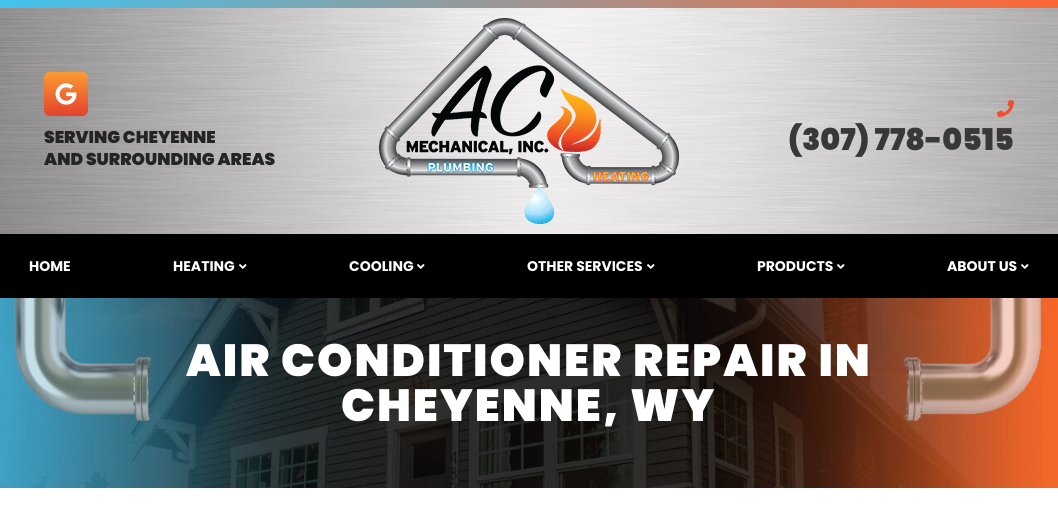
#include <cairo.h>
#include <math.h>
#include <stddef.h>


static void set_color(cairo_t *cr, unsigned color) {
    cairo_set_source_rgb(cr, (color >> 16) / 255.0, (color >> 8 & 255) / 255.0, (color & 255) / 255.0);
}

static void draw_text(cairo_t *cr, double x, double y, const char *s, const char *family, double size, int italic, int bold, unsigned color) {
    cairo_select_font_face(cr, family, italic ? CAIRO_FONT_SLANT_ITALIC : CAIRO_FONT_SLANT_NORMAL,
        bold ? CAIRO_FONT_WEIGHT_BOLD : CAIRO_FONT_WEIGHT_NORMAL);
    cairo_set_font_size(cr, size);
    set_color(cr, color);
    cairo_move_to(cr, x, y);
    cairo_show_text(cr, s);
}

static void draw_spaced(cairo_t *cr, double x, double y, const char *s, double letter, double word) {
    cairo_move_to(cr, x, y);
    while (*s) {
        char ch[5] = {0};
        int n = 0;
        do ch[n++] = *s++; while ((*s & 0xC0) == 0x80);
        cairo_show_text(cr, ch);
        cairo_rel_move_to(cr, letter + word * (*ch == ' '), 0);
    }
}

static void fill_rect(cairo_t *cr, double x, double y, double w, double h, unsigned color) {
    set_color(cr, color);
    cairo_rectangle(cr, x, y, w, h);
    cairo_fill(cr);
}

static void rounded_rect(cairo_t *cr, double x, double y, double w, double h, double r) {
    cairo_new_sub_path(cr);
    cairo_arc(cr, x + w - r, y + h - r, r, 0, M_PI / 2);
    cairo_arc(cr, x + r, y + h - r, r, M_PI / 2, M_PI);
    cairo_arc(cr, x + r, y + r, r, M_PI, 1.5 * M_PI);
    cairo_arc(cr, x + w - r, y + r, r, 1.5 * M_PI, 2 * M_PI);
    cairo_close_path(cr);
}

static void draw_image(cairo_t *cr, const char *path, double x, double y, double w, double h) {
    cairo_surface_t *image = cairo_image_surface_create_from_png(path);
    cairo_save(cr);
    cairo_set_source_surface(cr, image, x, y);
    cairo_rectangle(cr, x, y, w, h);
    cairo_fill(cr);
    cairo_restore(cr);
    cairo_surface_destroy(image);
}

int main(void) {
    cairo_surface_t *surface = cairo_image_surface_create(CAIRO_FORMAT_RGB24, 1058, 532);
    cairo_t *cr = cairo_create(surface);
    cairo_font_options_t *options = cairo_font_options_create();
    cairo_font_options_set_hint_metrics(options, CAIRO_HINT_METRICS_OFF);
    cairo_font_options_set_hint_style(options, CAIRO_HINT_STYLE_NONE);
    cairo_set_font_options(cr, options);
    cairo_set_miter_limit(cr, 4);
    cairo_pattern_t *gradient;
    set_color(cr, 0xFFFFFF);
    cairo_paint(cr);
    gradient = cairo_pattern_create_linear(0, 4, 1058, 4);
    cairo_pattern_add_color_stop_rgba(gradient, 0, 0.251, 0.765, 0.933, 1);
    cairo_pattern_add_color_stop_rgba(gradient, 1, 0.996, 0.4, 0.204, 1);
    cairo_set_source(cr, gradient);
    cairo_pattern_destroy(gradient);
    cairo_rectangle(cr, 0, 0, 1058, 8);
    cairo_fill(cr);
    draw_image(cr, "assets/img1.png", 0, 8, 1058, 226);
    gradient = cairo_pattern_create_linear(66, 72, 66, 116);
    cairo_pattern_add_color_stop_rgba(gradient, 0, 0.98, 0.612, 0.192, 1);
    cairo_pattern_add_color_stop_rgba(gradient, 1, 0.894, 0.255, 0.18, 1);
    cairo_set_source(cr, gradient);
    cairo_pattern_destroy(gradient);
    rounded_rect(cr, 44, 72, 44, 44, 6);
    cairo_fill(cr);
    draw_image(cr, "assets/img2.png", 55, 83, 22, 22);
    draw_text(cr, 44, 143, "SERVING CHEYENNE", "Poppins Black", 17, 0, 0, 0x242424);
    draw_text(cr, 44, 165, "AND SURROUNDING AREAS", "Poppins Black", 17, 0, 0, 0x242424);
    draw_image(cr, "assets/img3.png", 379, 18, 300, 206);
    draw_image(cr, "assets/img4.png", 997, 100, 17, 17);
    draw_text(cr, 788, 150, "(307) 778-0515", "Poppins Black", 30, 0, 0, 0x383838);
    fill_rect(cr, 0, 234, 1058, 64, 0x000000);
    draw_text(cr, 29, 271, "HOME", "Poppins", 14, 0, 1, 0xFFFFFF);
    draw_text(cr, 173, 271, "HEATING", "Poppins", 14, 0, 1, 0xFFFFFF);
    draw_image(cr, "assets/img5.png", 239, 264, 8, 5);
    draw_text(cr, 349, 271, "COOLING", "Poppins", 14, 0, 1, 0xFFFFFF);
    draw_image(cr, "assets/img5.png", 417, 264, 8, 5);
    draw_text(cr, 527, 271, "OTHER SERVICES", "Poppins", 14, 0, 1, 0xFFFFFF);
    draw_image(cr, "assets/img5.png", 647, 264, 8, 5);
    draw_text(cr, 757, 271, "PRODUCTS", "Poppins", 14, 0, 1, 0xFFFFFF);
    draw_image(cr, "assets/img5.png", 837, 264, 8, 5);
    draw_text(cr, 947, 271, "ABOUT US", "Poppins", 14, 0, 1, 0xFFFFFF);
    draw_image(cr, "assets/img5.png", 1021, 264, 8, 5);
    draw_image(cr, "assets/img6.png", 0, 298, 1058, 190);
    cairo_select_font_face(cr, "Poppins Black", CAIRO_FONT_SLANT_NORMAL, CAIRO_FONT_WEIGHT_NORMAL);
    cairo_set_font_size(cr, 45);
    draw_spaced(cr, 186, 376, "AIR CONDITIONER REPAIR IN", 2, 0);
    draw_spaced(cr, 341, 421, "CHEYENNE, WY", 2, 0);
    cairo_surface_write_to_png(surface, "output.png");
    cairo_font_options_destroy(options);
    cairo_destroy(cr);
    cairo_surface_destroy(surface);
    return 0;
}
